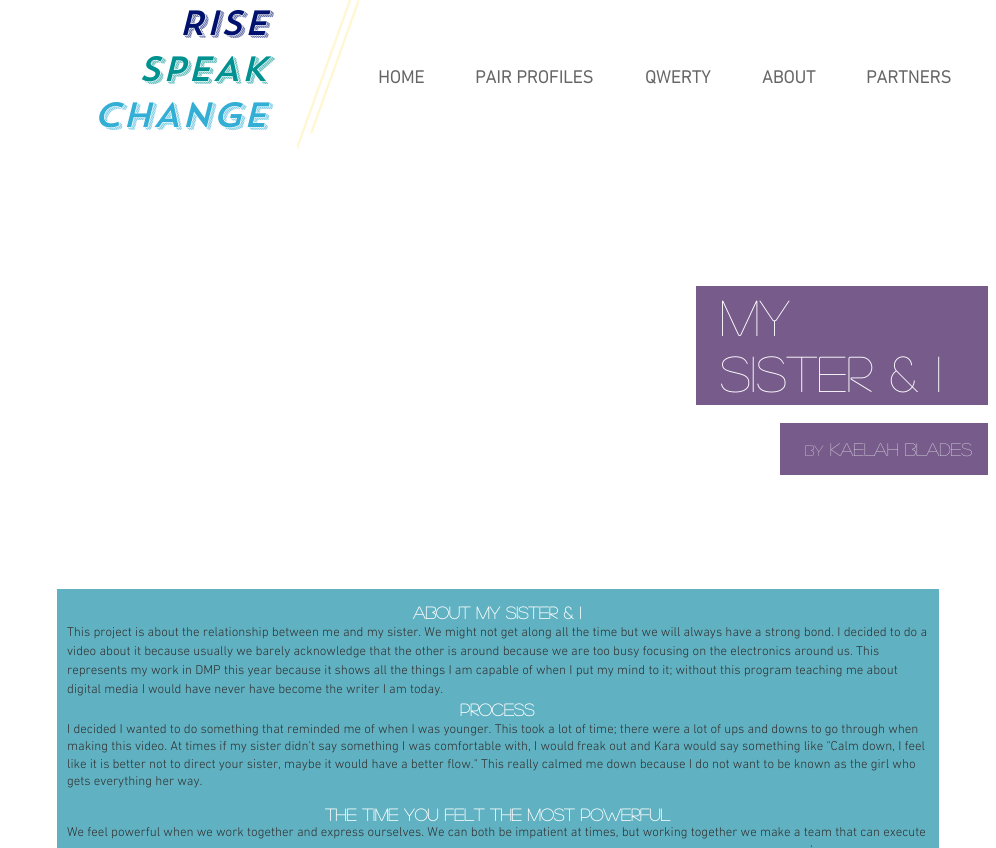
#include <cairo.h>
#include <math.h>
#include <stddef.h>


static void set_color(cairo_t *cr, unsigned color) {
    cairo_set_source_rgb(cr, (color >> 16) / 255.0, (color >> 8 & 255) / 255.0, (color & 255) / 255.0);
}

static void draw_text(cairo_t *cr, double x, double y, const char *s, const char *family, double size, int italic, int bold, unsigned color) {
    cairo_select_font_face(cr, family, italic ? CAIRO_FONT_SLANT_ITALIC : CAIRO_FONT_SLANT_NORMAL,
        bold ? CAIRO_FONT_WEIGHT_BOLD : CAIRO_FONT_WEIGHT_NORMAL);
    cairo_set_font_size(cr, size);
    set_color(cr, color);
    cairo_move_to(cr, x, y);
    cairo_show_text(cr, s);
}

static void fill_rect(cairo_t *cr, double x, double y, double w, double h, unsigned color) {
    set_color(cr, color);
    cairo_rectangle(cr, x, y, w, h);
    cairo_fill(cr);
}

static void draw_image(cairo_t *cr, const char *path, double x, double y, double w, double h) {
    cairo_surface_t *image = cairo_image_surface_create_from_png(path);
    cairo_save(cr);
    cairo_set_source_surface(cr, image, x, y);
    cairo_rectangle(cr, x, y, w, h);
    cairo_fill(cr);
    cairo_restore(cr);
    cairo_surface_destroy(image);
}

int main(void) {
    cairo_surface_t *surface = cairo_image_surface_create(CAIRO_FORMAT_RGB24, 996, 848);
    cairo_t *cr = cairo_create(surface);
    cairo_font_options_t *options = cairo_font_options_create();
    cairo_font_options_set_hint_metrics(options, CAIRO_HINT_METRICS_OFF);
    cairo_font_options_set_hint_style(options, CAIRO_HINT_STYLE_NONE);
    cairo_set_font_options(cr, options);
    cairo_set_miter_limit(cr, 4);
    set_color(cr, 0xFFFFFF);
    cairo_paint(cr);
    draw_text(cr, 178, 35, "RISE", "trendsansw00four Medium", 35, 1, 0, 0x00126E);
    draw_text(cr, 138, 81, "SPEAK", "trendsansw00four Medium", 35, 1, 0, 0x009191);
    draw_text(cr, 93, 127, "CHANGE", "trendsansw00four Medium", 35, 1, 0, 0x33AED4);
    draw_image(cr, "assets/img1.png", 297, 0, 62, 150);
    draw_text(cr, 378, 83, "HOME", "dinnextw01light", 18, 0, 1, 0x666666);
    draw_text(cr, 475, 83, "PAIR PROFILES", "dinnextw01light", 18, 0, 1, 0x666666);
    draw_text(cr, 645, 83, "QWERTY", "dinnextw01light", 18, 0, 1, 0x666666);
    draw_text(cr, 762, 83, "ABOUT", "dinnextw01light", 18, 0, 1, 0x666666);
    draw_text(cr, 866, 83, "PARTNERS", "dinnextw01light", 18, 0, 1, 0x666666);
    fill_rect(cr, 696, 286, 292, 119, 0x775C8B);
    draw_text(cr, 720, 336, "My", "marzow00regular", 50, 0, 0, 0xFFFFFF);
    draw_text(cr, 720, 392, "Sister & I", "marzow00regular", 50, 0, 0, 0xFFFFFF);
    fill_rect(cr, 780, 423, 208, 52, 0x775C8B);
    draw_text(cr, 805, 456, "by", "marzow00regular", 15, 0, 0, 0xFFFFFF);
    draw_text(cr, 830, 456, "kaelah blades", "marzow00regular", 18, 0, 0, 0xFFFFFF);
    fill_rect(cr, 57, 589, 882, 259, 0x60B1C1);
    draw_text(cr, 413, 619, "About My Sister & I", "marzow00regular", 17, 0, 1, 0xFFFFFF);
    draw_text(cr, 67, 636, "This project is about the relationship between me and my sister. We might not get along all the time but we will always have a strong bond. I decided to do a", "dinnextw01light Light", 13, 0, 0, 0x303030);
    draw_text(cr, 67, 655, "video about it because usually we barely acknowledge that the other is around because we are too busy focusing on the electronics around us. This", "dinnextw01light Light", 13, 0, 0, 0x303030);
    draw_text(cr, 67, 674, "represents my work in DMP this year because it shows all the things I am capable of when I put my mind to it; without this program teaching me about", "dinnextw01light Light", 13, 0, 0, 0x303030);
    draw_text(cr, 67, 693, "digital media I would have never have become the writer I am today.", "dinnextw01light Light", 13, 0, 0, 0x303030);
    draw_text(cr, 460, 716, "Process", "marzow00regular", 17, 0, 1, 0xFFFFFF);
    draw_text(cr, 67, 733, "I decided I wanted to do something that reminded me of when I was younger. This took a lot of time; there were a lot of ups and downs to go through when", "dinnextw01light Light", 13, 0, 0, 0x303030);
    draw_text(cr, 67, 750, "making this video. At times if my sister didn't say something I was comfortable with, I would freak out and Kara would say something like \"Calm down, I feel", "dinnextw01light Light", 13, 0, 0, 0x303030);
    draw_text(cr, 67, 768, "like it is better not to direct your sister, maybe it would have a better flow.\" This really calmed me down because I do not want to be known as the girl who", "dinnextw01light Light", 13, 0, 0, 0x303030);
    draw_text(cr, 67, 785, "gets everything her way.", "dinnextw01light Light", 13, 0, 0, 0x303030);
    draw_text(cr, 325, 821, "The time you felt the most powerful", "marzow00regular", 17, 0, 1, 0xFFFFFF);
    draw_text(cr, 67, 836, "We feel powerful when we work together and express ourselves. We can both be impatient at times, but working together we make a team that can execute", "dinnextw01light Light", 13, 0, 0, 0x303030);
    draw_text(cr, 810, 854, "'", "dinnextw01light Light", 13, 0, 0, 0x303030);
    cairo_surface_write_to_png(surface, "output.png");
    cairo_font_options_destroy(options);
    cairo_destroy(cr);
    cairo_surface_destroy(surface);
    return 0;
}
